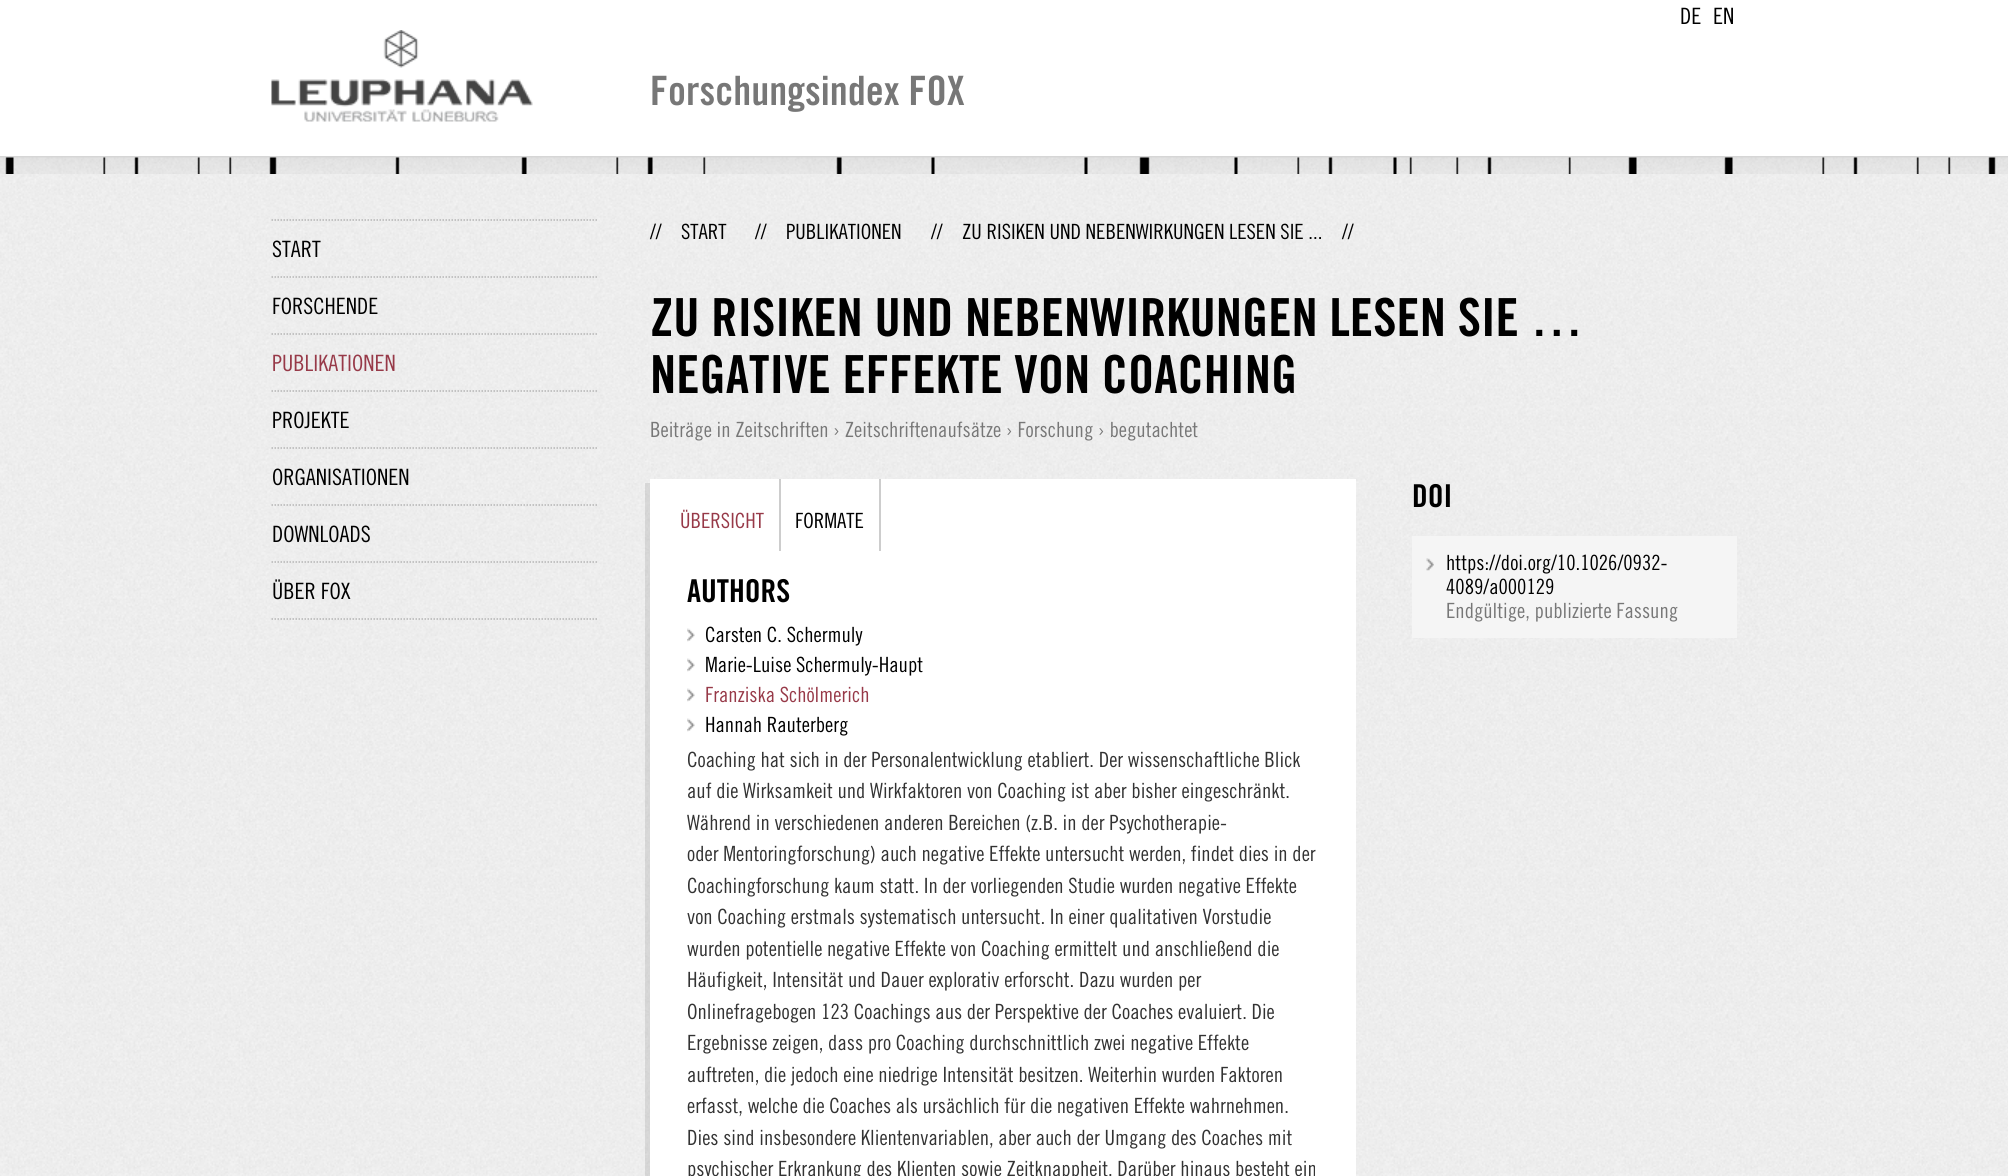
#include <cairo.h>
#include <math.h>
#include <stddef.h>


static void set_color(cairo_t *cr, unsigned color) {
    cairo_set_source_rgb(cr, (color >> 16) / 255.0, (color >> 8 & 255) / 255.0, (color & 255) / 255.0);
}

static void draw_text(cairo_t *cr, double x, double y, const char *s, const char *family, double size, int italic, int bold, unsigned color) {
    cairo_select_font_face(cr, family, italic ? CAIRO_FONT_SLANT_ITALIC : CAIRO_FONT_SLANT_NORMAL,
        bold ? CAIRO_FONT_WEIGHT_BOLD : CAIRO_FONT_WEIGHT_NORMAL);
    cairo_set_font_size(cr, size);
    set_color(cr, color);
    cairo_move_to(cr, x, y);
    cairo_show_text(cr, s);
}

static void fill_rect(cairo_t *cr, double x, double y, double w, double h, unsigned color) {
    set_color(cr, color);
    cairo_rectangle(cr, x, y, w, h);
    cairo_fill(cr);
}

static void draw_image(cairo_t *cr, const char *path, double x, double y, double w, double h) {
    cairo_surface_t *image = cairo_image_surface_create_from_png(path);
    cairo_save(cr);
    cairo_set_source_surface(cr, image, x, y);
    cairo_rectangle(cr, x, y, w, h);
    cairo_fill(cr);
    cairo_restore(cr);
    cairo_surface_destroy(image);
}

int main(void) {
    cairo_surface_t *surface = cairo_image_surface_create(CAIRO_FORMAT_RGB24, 2008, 1176);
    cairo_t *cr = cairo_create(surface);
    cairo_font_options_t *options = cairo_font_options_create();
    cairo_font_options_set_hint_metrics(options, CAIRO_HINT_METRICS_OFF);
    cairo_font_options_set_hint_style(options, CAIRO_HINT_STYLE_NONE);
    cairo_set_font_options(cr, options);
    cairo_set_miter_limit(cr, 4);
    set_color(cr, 0xFFFFFF);
    cairo_paint(cr);
    draw_image(cr, "assets/img1.png", 0, 174, 2008, 1002);
    fill_rect(cr, 0, 156, 2008, 2, 0xD6D6D6);
    draw_text(cr, 1680, 24, "DE", "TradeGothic", 22.5, 0, 0, 0x000000);
    draw_text(cr, 1713, 24, "EN", "TradeGothic", 22.5, 0, 0, 0x000000);
    draw_image(cr, "assets/img2.png", 271, 30, 262, 92);
    draw_text(cr, 650, 105, "Forschungsindex FOX", "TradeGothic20", 40.5, 0, 1, 0x777777);
    draw_image(cr, "assets/img3.png", 0, 157, 2008, 17);
    cairo_new_path(cr);
    cairo_move_to(cr, 271.5, 619);
    cairo_line_to(cr, 597, 619);
    set_color(cr, 0xB5B5B5);
    cairo_set_line_width(cr, 1.5);
    cairo_set_dash(cr, (double[]){1.5, 1.5}, 2, 0);
    cairo_stroke(cr);
    cairo_new_path(cr);
    cairo_move_to(cr, 271.5, 220);
    cairo_line_to(cr, 597, 220);
    cairo_stroke(cr);
    draw_text(cr, 272, 257, "START", "TradeGothic", 22.5, 0, 0, 0x000000);
    cairo_new_path(cr);
    cairo_move_to(cr, 271.5, 277);
    cairo_line_to(cr, 597, 277);
    set_color(cr, 0xB5B5B5);
    cairo_stroke(cr);
    draw_text(cr, 272, 314, "FORSCHENDE", "TradeGothic", 22.5, 0, 0, 0x000000);
    cairo_new_path(cr);
    cairo_move_to(cr, 271.5, 334);
    cairo_line_to(cr, 597, 334);
    set_color(cr, 0xB5B5B5);
    cairo_stroke(cr);
    draw_text(cr, 272, 371, "PUBLIKATIONEN", "TradeGothic", 22.5, 0, 0, 0x973948);
    cairo_new_path(cr);
    cairo_move_to(cr, 271.5, 391);
    cairo_line_to(cr, 597, 391);
    set_color(cr, 0xB5B5B5);
    cairo_stroke(cr);
    draw_text(cr, 272, 428, "PROJEKTE", "TradeGothic", 22.5, 0, 0, 0x000000);
    cairo_new_path(cr);
    cairo_move_to(cr, 271.5, 448);
    cairo_line_to(cr, 597, 448);
    set_color(cr, 0xB5B5B5);
    cairo_stroke(cr);
    draw_text(cr, 272, 485, "ORGANISATIONEN", "TradeGothic", 22.5, 0, 0, 0x000000);
    cairo_new_path(cr);
    cairo_move_to(cr, 271.5, 505);
    cairo_line_to(cr, 597, 505);
    set_color(cr, 0xB5B5B5);
    cairo_stroke(cr);
    draw_text(cr, 272, 542, "DOWNLOADS", "TradeGothic", 22.5, 0, 0, 0x000000);
    cairo_new_path(cr);
    cairo_move_to(cr, 271.5, 562);
    cairo_line_to(cr, 597, 562);
    set_color(cr, 0xB5B5B5);
    cairo_stroke(cr);
    draw_text(cr, 272, 599, "ÜBER FOX", "TradeGothic", 22.5, 0, 0, 0x000000);
    draw_text(cr, 650, 239, "//", "TradeGothic", 21, 0, 0, 0x000000);
    draw_text(cr, 681, 239, "START", "TradeGothic", 21, 0, 0, 0x000000);
    draw_text(cr, 755, 239, "//", "TradeGothic", 21, 0, 0, 0x000000);
    draw_text(cr, 786, 239, "PUBLIKATIONEN", "TradeGothic", 21, 0, 0, 0x000000);
    draw_text(cr, 931, 239, "//", "TradeGothic", 21, 0, 0, 0x000000);
    draw_text(cr, 962, 239, "ZU RISIKEN UND NEBENWIRKUNGEN LESEN SIE ...", "TradeGothic", 21, 0, 0, 0x000000);
    draw_text(cr, 1342, 239, "//", "TradeGothic", 21, 0, 0, 0x000000);
    draw_text(cr, 650, 336, "ZU RISIKEN UND NEBENWIRKUNGEN LESEN SIE …", "TradeGothic20", 52.5, 0, 1, 0x000000);
    draw_text(cr, 650, 393, "NEGATIVE EFFEKTE VON COACHING", "TradeGothic20", 52.5, 0, 1, 0x000000);
    draw_text(cr, 650, 437, "Beiträge in Zeitschriften › Zeitschriftenaufsätze › Forschung › begutachtet", "TradeGothic", 21, 0, 0, 0x777777);
    cairo_set_source_rgba(cr, 0, 0, 0, 0.1);
    cairo_new_path(cr);
    cairo_move_to(cr, 645, 483);
    cairo_line_to(cr, 645, 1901);
    cairo_line_to(cr, 1352, 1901);
    cairo_line_to(cr, 1352, 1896);
    cairo_line_to(cr, 650, 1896);
    cairo_line_to(cr, 650, 483);
    cairo_close_path(cr);
    cairo_fill(cr);
    fill_rect(cr, 650, 479, 706, 697, 0xFFFFFF);
    fill_rect(cr, 779, 479, 2, 72, 0xCDCDCD);
    draw_text(cr, 680, 528, "ÜBERSICHT", "TradeGothic", 21, 0, 0, 0x973948);
    fill_rect(cr, 879, 479, 2, 72, 0xCDCDCD);
    draw_text(cr, 795, 528, "FORMATE", "TradeGothic", 21, 0, 0, 0x000000);
    draw_text(cr, 687, 602, "AUTHORS", "TradeGothic20", 31.5, 0, 1, 0x000000);
    draw_image(cr, "assets/img4.png", 687, 628, 8, 14);
    draw_text(cr, 705, 642, "Carsten C. Schermuly", "TradeGothic", 21, 0, 0, 0x000000);
    draw_image(cr, "assets/img4.png", 687, 658, 8, 14);
    draw_text(cr, 705, 672, "Marie-Luise Schermuly-Haupt", "TradeGothic", 21, 0, 0, 0x000000);
    draw_image(cr, "assets/img4.png", 687, 688, 8, 14);
    draw_text(cr, 705, 702, "Franziska Schölmerich", "TradeGothic", 21, 0, 0, 0x973948);
    draw_image(cr, "assets/img4.png", 687, 718, 8, 14);
    draw_text(cr, 705, 732, "Hannah Rauterberg", "TradeGothic", 21, 0, 0, 0x000000);
    draw_text(cr, 687, 767, "Coaching hat sich in der Personalentwicklung etabliert. Der wissenschaftliche Blick", "TradeGothic", 21, 0, 0, 0x333333);
    draw_text(cr, 687, 798, "auf die Wirksamkeit und Wirkfaktoren von Coaching ist aber bisher eingeschränkt.", "TradeGothic", 21, 0, 0, 0x333333);
    draw_text(cr, 687, 830, "Während in verschiedenen anderen Bereichen (z.B. in der Psychotherapie-", "TradeGothic", 21, 0, 0, 0x333333);
    draw_text(cr, 687, 861, "oder Mentoringforschung) auch negative Effekte untersucht werden, findet dies in der", "TradeGothic", 21, 0, 0, 0x333333);
    draw_text(cr, 687, 893, "Coachingforschung kaum statt. In der vorliegenden Studie wurden negative Effekte", "TradeGothic", 21, 0, 0, 0x333333);
    draw_text(cr, 687, 924, "von Coaching erstmals systematisch untersucht. In einer qualitativen Vorstudie", "TradeGothic", 21, 0, 0, 0x333333);
    draw_text(cr, 687, 956, "wurden potentielle negative Effekte von Coaching ermittelt und anschließend die", "TradeGothic", 21, 0, 0, 0x333333);
    draw_text(cr, 687, 987, "Häufigkeit, Intensität und Dauer explorativ erforscht. Dazu wurden per", "TradeGothic", 21, 0, 0, 0x333333);
    draw_text(cr, 687, 1019, "Onlinefragebogen 123 Coachings aus der Perspektive der Coaches evaluiert. Die", "TradeGothic", 21, 0, 0, 0x333333);
    draw_text(cr, 687, 1050, "Ergebnisse zeigen, dass pro Coaching durchschnittlich zwei negative Effekte", "TradeGothic", 21, 0, 0, 0x333333);
    draw_text(cr, 687, 1082, "auftreten, die jedoch eine niedrige Intensität besitzen. Weiterhin wurden Faktoren", "TradeGothic", 21, 0, 0, 0x333333);
    draw_text(cr, 687, 1113, "erfasst, welche die Coaches als ursächlich für die negativen Effekte wahrnehmen.", "TradeGothic", 21, 0, 0, 0x333333);
    draw_text(cr, 687, 1145, "Dies sind insbesondere Klientenvariablen, aber auch der Umgang des Coaches mit", "TradeGothic", 21, 0, 0, 0x333333);
    draw_text(cr, 687, 1176, "psychischer Erkrankung des Klienten sowie Zeitknappheit. Darüber hinaus besteht ein", "TradeGothic", 21, 0, 0, 0x333333);
    draw_text(cr, 1412, 507, "DOI", "TradeGothic20", 31.5, 0, 1, 0x000000);
    fill_rect(cr, 1412, 536, 325, 102, 0xF5F5F5);
    draw_image(cr, "assets/img5.png", 1426, 558, 8, 13);
    draw_text(cr, 1446, 570, "https://doi.org/10.1026/0932-", "TradeGothic", 21, 0, 0, 0x000000);
    draw_text(cr, 1446, 594, "4089/a000129", "TradeGothic", 21, 0, 0, 0x000000);
    draw_text(cr, 1446, 618, "Endgültige, publizierte Fassung", "TradeGothic", 21, 0, 0, 0x777777);
    cairo_surface_write_to_png(surface, "output.png");
    cairo_font_options_destroy(options);
    cairo_destroy(cr);
    cairo_surface_destroy(surface);
    return 0;
}
